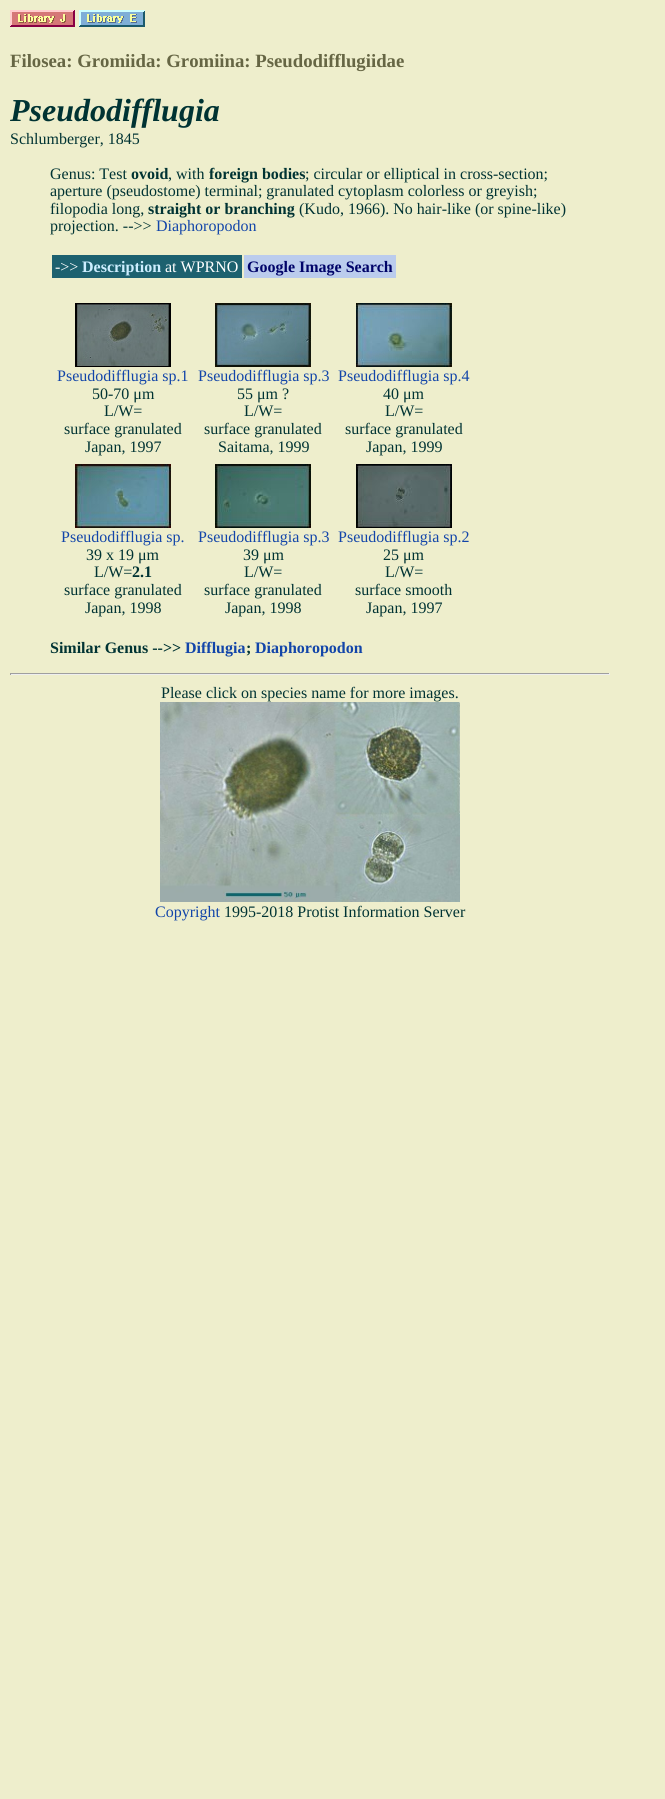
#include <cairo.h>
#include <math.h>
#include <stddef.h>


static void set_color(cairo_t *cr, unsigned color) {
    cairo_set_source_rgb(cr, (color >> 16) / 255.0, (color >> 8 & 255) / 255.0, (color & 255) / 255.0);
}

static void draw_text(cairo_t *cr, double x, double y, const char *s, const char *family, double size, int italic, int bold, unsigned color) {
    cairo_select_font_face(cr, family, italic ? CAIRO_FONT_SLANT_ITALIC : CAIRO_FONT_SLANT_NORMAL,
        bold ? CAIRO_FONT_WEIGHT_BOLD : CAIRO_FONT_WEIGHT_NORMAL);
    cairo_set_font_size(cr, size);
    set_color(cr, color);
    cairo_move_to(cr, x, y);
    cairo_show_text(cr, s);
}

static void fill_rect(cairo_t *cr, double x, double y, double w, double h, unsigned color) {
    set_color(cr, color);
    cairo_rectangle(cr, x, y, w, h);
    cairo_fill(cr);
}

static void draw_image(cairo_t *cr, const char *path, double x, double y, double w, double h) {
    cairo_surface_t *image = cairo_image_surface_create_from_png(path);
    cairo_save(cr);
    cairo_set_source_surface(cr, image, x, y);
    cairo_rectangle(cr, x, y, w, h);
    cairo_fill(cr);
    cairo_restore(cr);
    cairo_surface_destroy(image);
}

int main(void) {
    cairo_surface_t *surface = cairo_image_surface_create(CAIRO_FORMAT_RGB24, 665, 1799);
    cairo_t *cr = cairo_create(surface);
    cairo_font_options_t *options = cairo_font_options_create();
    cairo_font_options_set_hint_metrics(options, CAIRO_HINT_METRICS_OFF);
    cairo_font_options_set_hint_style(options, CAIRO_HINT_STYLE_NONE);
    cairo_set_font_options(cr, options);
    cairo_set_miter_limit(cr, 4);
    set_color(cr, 0xEEEECC);
    cairo_paint(cr);
    draw_image(cr, "assets/img1.png", 10, 10, 65, 17);
    draw_image(cr, "assets/img2.png", 79, 10, 66, 17);
    draw_text(cr, 10, 67, "Filosea: Gromiida: Gromiina: Pseudodifflugiidae", "Liberation Serif", 18.75, 0, 1, 0x666644);
    draw_text(cr, 10, 121, "Pseudodifflugia", "Liberation Serif", 32, 1, 1, 0x003333);
    draw_text(cr, 10, 144, "Schlumberger, 1845", "Liberation Serif", 16, 0, 0, 0x003333);
    draw_text(cr, 50, 179, "Genus: Test", "Liberation Serif", 16, 0, 0, 0x003333);
    draw_text(cr, 131, 179, "ovoid", "Liberation Serif", 16, 0, 1, 0x003333);
    draw_text(cr, 168, 179, ", with", "Liberation Serif", 16, 0, 0, 0x003333);
    draw_text(cr, 209, 179, "foreign bodies", "Liberation Serif", 16, 0, 1, 0x003333);
    draw_text(cr, 305, 179, "; circular or elliptical in cross-section;", "Liberation Serif", 16, 0, 0, 0x003333);
    draw_text(cr, 50, 196, "aperture (pseudostome) terminal; granulated cytoplasm colorless or greyish;", "Liberation Serif", 16, 0, 0, 0x003333);
    draw_text(cr, 50, 214, "filopodia long,", "Liberation Serif", 16, 0, 0, 0x003333);
    draw_text(cr, 148, 214, "straight or branching", "Liberation Serif", 16, 0, 1, 0x003333);
    draw_text(cr, 299, 214, "(Kudo, 1966). No hair-like (or spine-like)", "Liberation Serif", 16, 0, 0, 0x003333);
    draw_text(cr, 50, 231, "projection. -->>", "Liberation Serif", 16, 0, 0, 0x003333);
    draw_text(cr, 156, 231, "Diaphoropodon", "Liberation Serif", 16, 0, 0, 0x1245A9);
    fill_rect(cr, 52, 255, 190, 23, 0x1D616F);
    draw_text(cr, 55, 272, "->>", "Liberation Serif", 16, 0, 0, 0xFFFFFF);
    draw_text(cr, 82, 272, "Description", "Liberation Serif", 16, 0, 1, 0xCDEEFF);
    draw_text(cr, 165, 272, "at WPRNO", "Liberation Serif", 16, 0, 0, 0xFFFFFF);
    fill_rect(cr, 244, 255, 152, 23, 0xBBCCED);
    draw_text(cr, 247, 272, "Google Image Search", "Liberation Serif", 16, 0, 1, 0x000369);
    draw_image(cr, "assets/img3.png", 75, 303, 96, 64);
    draw_text(cr, 57, 381, "Pseudodifflugia sp.1", "Liberation Serif", 16, 0, 0, 0x1245A9);
    draw_text(cr, 92, 399, "50-70 μm", "Liberation Serif", 16, 0, 0, 0x003333);
    draw_text(cr, 104, 416, "L/W=", "Liberation Serif", 16, 0, 0, 0x003333);
    draw_text(cr, 64, 434, "surface granulated", "Liberation Serif", 16, 0, 0, 0x003333);
    draw_text(cr, 85, 452, "Japan, 1997", "Liberation Serif", 16, 0, 0, 0x003333);
    draw_image(cr, "assets/img4.png", 215, 303, 96, 64);
    draw_text(cr, 198, 381, "Pseudodifflugia sp.3", "Liberation Serif", 16, 0, 0, 0x1245A9);
    draw_text(cr, 237, 399, "55 μm ?", "Liberation Serif", 16, 0, 0, 0x003333);
    draw_text(cr, 244, 416, "L/W=", "Liberation Serif", 16, 0, 0, 0x003333);
    draw_text(cr, 204, 434, "surface granulated", "Liberation Serif", 16, 0, 0, 0x003333);
    draw_text(cr, 218, 452, "Saitama, 1999", "Liberation Serif", 16, 0, 0, 0x003333);
    draw_image(cr, "assets/img5.png", 356, 303, 96, 64);
    draw_text(cr, 338, 381, "Pseudodifflugia sp.4", "Liberation Serif", 16, 0, 0, 0x1245A9);
    draw_text(cr, 383, 399, "40 μm", "Liberation Serif", 16, 0, 0, 0x003333);
    draw_text(cr, 385, 416, "L/W=", "Liberation Serif", 16, 0, 0, 0x003333);
    draw_text(cr, 345, 434, "surface granulated", "Liberation Serif", 16, 0, 0, 0x003333);
    draw_text(cr, 366, 452, "Japan, 1999", "Liberation Serif", 16, 0, 0, 0x003333);
    draw_image(cr, "assets/img6.png", 75, 464, 96, 64);
    draw_text(cr, 61, 542, "Pseudodifflugia sp.", "Liberation Serif", 16, 0, 0, 0x1245A9);
    draw_text(cr, 86, 560, "39 x 19 μm", "Liberation Serif", 16, 0, 0, 0x003333);
    draw_text(cr, 94, 577, "L/W=", "Liberation Serif", 16, 0, 0, 0x003333);
    draw_text(cr, 132, 577, "2.1", "Liberation Serif", 16, 0, 1, 0x003333);
    draw_text(cr, 64, 595, "surface granulated", "Liberation Serif", 16, 0, 0, 0x003333);
    draw_text(cr, 85, 613, "Japan, 1998", "Liberation Serif", 16, 0, 0, 0x003333);
    draw_image(cr, "assets/img7.png", 215, 464, 96, 64);
    draw_text(cr, 198, 542, "Pseudodifflugia sp.3", "Liberation Serif", 16, 0, 0, 0x1245A9);
    draw_text(cr, 243, 560, "39 μm", "Liberation Serif", 16, 0, 0, 0x003333);
    draw_text(cr, 244, 577, "L/W=", "Liberation Serif", 16, 0, 0, 0x003333);
    draw_text(cr, 204, 595, "surface granulated", "Liberation Serif", 16, 0, 0, 0x003333);
    draw_text(cr, 225, 613, "Japan, 1998", "Liberation Serif", 16, 0, 0, 0x003333);
    draw_image(cr, "assets/img8.png", 356, 464, 96, 64);
    draw_text(cr, 338, 542, "Pseudodifflugia sp.2", "Liberation Serif", 16, 0, 0, 0x1245A9);
    draw_text(cr, 383, 560, "25 μm", "Liberation Serif", 16, 0, 0, 0x003333);
    draw_text(cr, 385, 577, "L/W=", "Liberation Serif", 16, 0, 0, 0x003333);
    draw_text(cr, 355, 595, "surface smooth", "Liberation Serif", 16, 0, 0, 0x003333);
    draw_text(cr, 366, 613, "Japan, 1997", "Liberation Serif", 16, 0, 0, 0x003333);
    draw_text(cr, 50, 653, "Similar Genus -->>", "Liberation Serif", 16, 0, 1, 0x003333);
    draw_text(cr, 185, 653, "Difflugia", "Liberation Serif", 16, 0, 1, 0x1245A9);
    draw_text(cr, 246, 653, ";", "Liberation Serif", 16, 0, 1, 0x003333);
    draw_text(cr, 255, 653, "Diaphoropodon", "Liberation Serif", 16, 0, 1, 0x1245A9);
    fill_rect(cr, 10, 673, 600, 1, 0x9F9F9F);
    fill_rect(cr, 609, 673, 1, 2, 0xEEEEEE);
    fill_rect(cr, 10, 674, 600, 1, 0xEEEEEE);
    fill_rect(cr, 10, 673, 1, 2, 0x9F9F9F);
    draw_text(cr, 161, 698, "Please click on species name for more images.", "Liberation Serif", 16, 0, 0, 0x003333);
    draw_image(cr, "assets/img9.png", 160, 702, 300, 200);
    draw_text(cr, 155, 917, "Copyright", "Liberation Serif", 16, 0, 0, 0x1245A9);
    draw_text(cr, 224, 917, "1995-2018 Protist Information Server", "Liberation Serif", 16, 0, 0, 0x003333);
    cairo_surface_write_to_png(surface, "output.png");
    cairo_font_options_destroy(options);
    cairo_destroy(cr);
    cairo_surface_destroy(surface);
    return 0;
}
